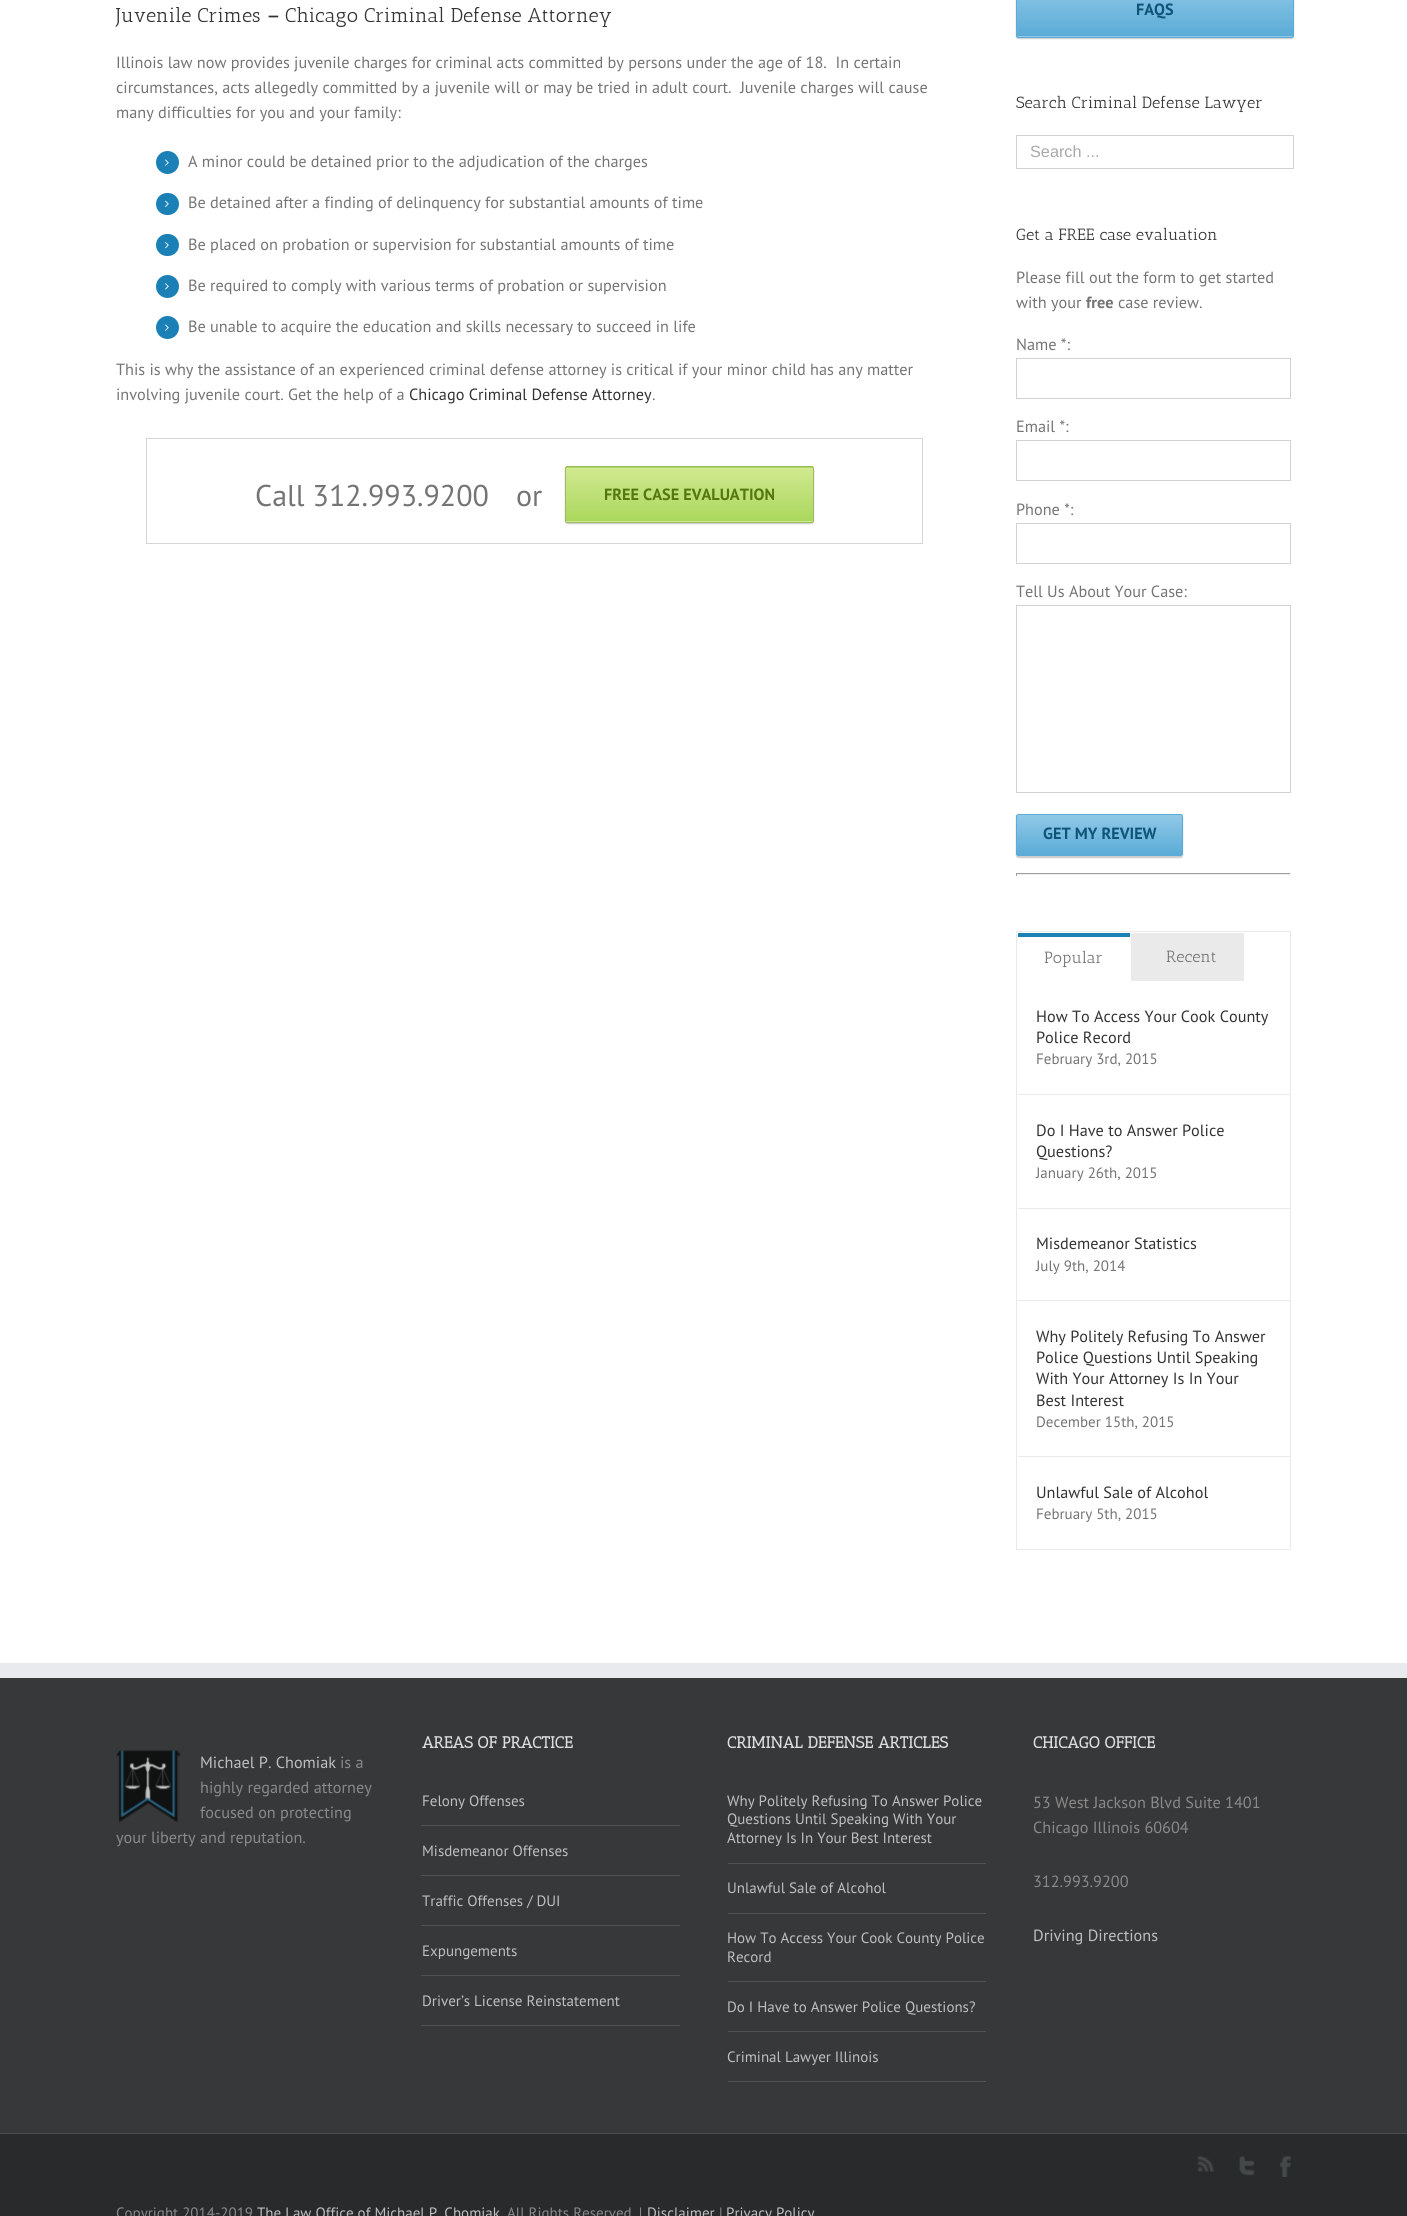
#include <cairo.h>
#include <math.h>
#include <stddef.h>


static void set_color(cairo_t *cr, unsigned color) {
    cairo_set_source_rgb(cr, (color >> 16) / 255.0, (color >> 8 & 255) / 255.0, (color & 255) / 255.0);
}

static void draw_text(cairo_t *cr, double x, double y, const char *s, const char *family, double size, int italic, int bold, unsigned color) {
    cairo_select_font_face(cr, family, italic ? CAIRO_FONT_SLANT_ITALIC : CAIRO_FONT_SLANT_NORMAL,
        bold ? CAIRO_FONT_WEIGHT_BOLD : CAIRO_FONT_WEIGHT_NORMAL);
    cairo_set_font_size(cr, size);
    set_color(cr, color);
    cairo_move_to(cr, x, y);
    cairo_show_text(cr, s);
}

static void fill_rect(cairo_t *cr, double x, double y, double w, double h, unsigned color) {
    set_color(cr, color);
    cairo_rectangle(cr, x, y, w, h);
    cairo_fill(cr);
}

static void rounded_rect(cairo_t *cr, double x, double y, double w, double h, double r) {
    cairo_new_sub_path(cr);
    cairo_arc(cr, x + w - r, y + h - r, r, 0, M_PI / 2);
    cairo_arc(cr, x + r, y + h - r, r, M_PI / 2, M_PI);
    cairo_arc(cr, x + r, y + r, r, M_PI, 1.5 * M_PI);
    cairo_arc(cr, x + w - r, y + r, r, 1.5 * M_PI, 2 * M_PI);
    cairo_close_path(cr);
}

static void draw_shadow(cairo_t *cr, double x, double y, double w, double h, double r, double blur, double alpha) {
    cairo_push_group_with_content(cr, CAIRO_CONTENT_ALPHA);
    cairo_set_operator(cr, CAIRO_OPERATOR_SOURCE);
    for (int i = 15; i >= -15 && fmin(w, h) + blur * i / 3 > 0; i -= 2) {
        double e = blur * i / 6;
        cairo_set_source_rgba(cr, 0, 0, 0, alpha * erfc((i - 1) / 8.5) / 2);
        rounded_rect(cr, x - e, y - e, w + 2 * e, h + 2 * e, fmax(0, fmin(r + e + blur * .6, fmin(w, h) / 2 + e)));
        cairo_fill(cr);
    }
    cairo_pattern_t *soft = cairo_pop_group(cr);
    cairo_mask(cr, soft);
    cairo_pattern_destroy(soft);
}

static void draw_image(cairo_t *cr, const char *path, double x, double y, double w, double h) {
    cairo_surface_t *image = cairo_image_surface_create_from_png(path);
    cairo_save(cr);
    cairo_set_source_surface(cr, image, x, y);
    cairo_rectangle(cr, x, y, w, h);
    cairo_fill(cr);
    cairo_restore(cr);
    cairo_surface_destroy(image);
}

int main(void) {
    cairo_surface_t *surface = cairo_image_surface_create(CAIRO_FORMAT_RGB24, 1407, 2216);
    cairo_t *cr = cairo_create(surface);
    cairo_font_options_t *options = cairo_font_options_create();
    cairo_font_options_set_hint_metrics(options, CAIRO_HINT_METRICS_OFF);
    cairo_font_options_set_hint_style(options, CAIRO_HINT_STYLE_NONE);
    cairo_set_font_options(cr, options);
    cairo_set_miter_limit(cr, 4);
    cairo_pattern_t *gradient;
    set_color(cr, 0xFFFFFF);
    cairo_paint(cr);
    draw_text(cr, 116, 22, "Juvenile Crimes", "Antic Slab", 20, 0, 0, 0x333333);
    draw_text(cr, 267, 22, "–", "Antic Slab", 20, 0, 1, 0x333333);
    draw_text(cr, 285, 22, "Chicago Criminal Defense Attorney", "Antic Slab", 20, 0, 0, 0x333333);
    draw_text(cr, 116, 68, "Illinois law now provides juvenile charges for criminal acts committed by persons under the age of 18.  In certain", "PT Sans", 16.25, 0, 0, 0x747474);
    draw_text(cr, 116, 93, "circumstances, acts allegedly committed by a juvenile will or may be tried in adult court.  Juvenile charges will cause", "PT Sans", 16.25, 0, 0, 0x747474);
    draw_text(cr, 116, 118, "many difficulties for you and your family:", "PT Sans", 16.25, 0, 0, 0x747474);
    set_color(cr, 0x1A80B6);
    cairo_new_path(cr);
    cairo_arc(cr, 167.5, 162.5, 11.5, 0, 2 * M_PI);
    cairo_fill(cr);
    draw_image(cr, "assets/img1.png", 165, 159, 4, 7);
    draw_text(cr, 188, 167, "A minor could be detained prior to the adjudication of the charges", "PT Sans", 16.25, 0, 0, 0x747474);
    set_color(cr, 0x1A80B6);
    rounded_rect(cr, 156, 193, 23, 22, 11);
    cairo_fill(cr);
    draw_image(cr, "assets/img2.png", 165, 200, 4, 7);
    draw_text(cr, 188, 208, "Be detained after a finding of delinquency for substantial amounts of time", "PT Sans", 16.25, 0, 0, 0x747474);
    set_color(cr, 0x1A80B6);
    rounded_rect(cr, 156, 234, 23, 22, 11);
    cairo_fill(cr);
    draw_image(cr, "assets/img3.png", 165, 242, 4, 7);
    draw_text(cr, 188, 250, "Be placed on probation or supervision for substantial amounts of time", "PT Sans", 16.25, 0, 0, 0x747474);
    set_color(cr, 0x1A80B6);
    cairo_new_path(cr);
    cairo_arc(cr, 167.5, 286.5, 11.5, 0, 2 * M_PI);
    cairo_fill(cr);
    draw_image(cr, "assets/img4.png", 165, 283, 4, 7);
    draw_text(cr, 188, 291, "Be required to comply with various terms of probation or supervision", "PT Sans", 16.25, 0, 0, 0x747474);
    set_color(cr, 0x1A80B6);
    cairo_new_path(cr);
    cairo_arc(cr, 167.5, 327.5, 11.5, 0, 2 * M_PI);
    cairo_fill(cr);
    draw_image(cr, "assets/img1.png", 165, 324, 4, 7);
    draw_text(cr, 188, 332, "Be unable to acquire the education and skills necessary to succeed in life", "PT Sans", 16.25, 0, 0, 0x747474);
    draw_text(cr, 116, 375, "This is why the assistance of an experienced criminal defense attorney is critical if your minor child has any matter", "PT Sans", 16.25, 0, 0, 0x747474);
    draw_text(cr, 116, 400, "involving juvenile court. Get the help of a", "PT Sans", 16.25, 0, 0, 0x747474);
    draw_text(cr, 409, 400, "Chicago Criminal Defense Attorney", "PT Sans", 16.25, 0, 0, 0x333333);
    draw_text(cr, 652, 400, ".", "PT Sans", 16.25, 0, 0, 0x747474);
    cairo_rectangle(cr, 146.5, 438.5, 776, 105);
    set_color(cr, 0xD7D6D6);
    cairo_set_line_width(cr, 1);
    cairo_stroke(cr);
    draw_text(cr, 255, 506, "Call 312.993.9200", "PT Sans", 30, 0, 0, 0x747474);
    draw_text(cr, 516, 506, "or", "PT Sans", 30, 0, 0, 0x747474);
    set_color(cr, 0x000000);
    draw_shadow(cr, 565, 468, 249, 56, 2.5, 0.5, 0.2);
    cairo_save(cr);
    rounded_rect(cr, 565, 466, 249, 57, 2.5);
    cairo_clip(cr);
    gradient = cairo_pattern_create_linear(566, 414, 566, 468);
    cairo_pattern_add_color_stop_rgba(gradient, 0, 0.82, 0.914, 0.565, 1);
    cairo_pattern_add_color_stop_rgba(gradient, 1, 0.667, 0.843, 0.365, 1);
    cairo_set_source(cr, gradient);
    cairo_pattern_destroy(gradient);
    cairo_rectangle(cr, 565, 466, 249, 2);
    cairo_fill(cr);
    cairo_restore(cr);
    gradient = cairo_pattern_create_linear(566, 468, 566, 521);
    cairo_pattern_add_color_stop_rgba(gradient, 0, 0.82, 0.914, 0.565, 1);
    cairo_pattern_add_color_stop_rgba(gradient, 1, 0.667, 0.843, 0.365, 1);
    cairo_set_source(cr, gradient);
    cairo_pattern_destroy(gradient);
    cairo_rectangle(cr, 565, 468, 249, 53);
    cairo_fill(cr);
    cairo_save(cr);
    rounded_rect(cr, 565, 466, 249, 57, 2.5);
    cairo_clip(cr);
    gradient = cairo_pattern_create_linear(566, 521, 566, 575);
    cairo_pattern_add_color_stop_rgba(gradient, 0, 0.82, 0.914, 0.565, 1);
    cairo_pattern_add_color_stop_rgba(gradient, 1, 0.667, 0.843, 0.365, 1);
    cairo_set_source(cr, gradient);
    cairo_pattern_destroy(gradient);
    cairo_rectangle(cr, 565, 521, 249, 2);
    cairo_fill(cr);
    cairo_restore(cr);
    rounded_rect(cr, 565.5, 466.5, 248, 56, 2);
    set_color(cr, 0x9DBA60);
    cairo_stroke(cr);
    draw_text(cr, 604, 500, "FREE CASE EVALUATION", "PT Sans", 16.25, 0, 1, 0x54770F);
    set_color(cr, 0x000000);
    draw_shadow(cr, 1016, -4, 278, 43, 2.5, 0.5, 0.2);
    gradient = cairo_pattern_create_linear(1018, -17, 1018, 36);
    cairo_pattern_add_color_stop_rgba(gradient, 0, 0.565, 0.788, 0.91, 1);
    cairo_pattern_add_color_stop_rgba(gradient, 1, 0.353, 0.671, 0.839, 1);
    cairo_set_source(cr, gradient);
    cairo_pattern_destroy(gradient);
    cairo_rectangle(cr, 1016, 0, 278, 36);
    cairo_fill(cr);
    cairo_save(cr);
    rounded_rect(cr, 1016, -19, 278, 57, 2.5);
    cairo_clip(cr);
    gradient = cairo_pattern_create_linear(1018, 36, 1018, 90);
    cairo_pattern_add_color_stop_rgba(gradient, 0, 0.565, 0.788, 0.91, 1);
    cairo_pattern_add_color_stop_rgba(gradient, 1, 0.353, 0.671, 0.839, 1);
    cairo_set_source(cr, gradient);
    cairo_pattern_destroy(gradient);
    cairo_rectangle(cr, 1016, 36, 278, 2);
    cairo_fill(cr);
    cairo_restore(cr);
    rounded_rect(cr, 1016.5, -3.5, 277, 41, 2);
    set_color(cr, 0x5AABD6);
    cairo_stroke(cr);
    draw_text(cr, 1136, 15, "FAQS", "PT Sans", 16.25, 0, 1, 0x105378);
    draw_text(cr, 1016, 108, "Search Criminal Defense Lawyer", "Antic Slab", 16.25, 0, 0, 0x333333);
    cairo_rectangle(cr, 1016.5, 135.5, 277, 33);
    set_color(cr, 0xD2D2D2);
    cairo_stroke(cr);
    draw_text(cr, 1030, 157, "Search ...", "Liberation Sans", 16.25, 0, 0, 0xAAA9A9);
    draw_text(cr, 1016, 240, "Get a FREE case evaluation", "Antic Slab", 16.25, 0, 0, 0x333333);
    draw_text(cr, 1016, 283, "Please fill out the form to get started", "PT Sans", 16.25, 0, 0, 0x747474);
    draw_text(cr, 1016, 308, "with your", "PT Sans", 16.25, 0, 0, 0x747474);
    draw_text(cr, 1086, 308, "free", "PT Sans", 16.25, 0, 1, 0x747474);
    draw_text(cr, 1118, 308, "case review.", "PT Sans", 16.25, 0, 0, 0x747474);
    draw_text(cr, 1016, 350, "Name *:", "PT Sans", 16.25, 0, 0, 0x747474);
    cairo_rectangle(cr, 1016.5, 358.5, 274, 40);
    set_color(cr, 0xD2D2D2);
    cairo_stroke(cr);
    draw_text(cr, 1016, 432, "Email *:", "PT Sans", 16.25, 0, 0, 0x747474);
    cairo_rectangle(cr, 1016.5, 440.5, 274, 40);
    set_color(cr, 0xD2D2D2);
    cairo_stroke(cr);
    draw_text(cr, 1016, 515, "Phone *:", "PT Sans", 16.25, 0, 0, 0x747474);
    cairo_rectangle(cr, 1016.5, 523.5, 274, 40);
    set_color(cr, 0xD2D2D2);
    cairo_stroke(cr);
    draw_text(cr, 1016, 597, "Tell Us About Your Case:", "PT Sans", 16.25, 0, 0, 0x747474);
    cairo_rectangle(cr, 1016.5, 605.5, 274, 187);
    set_color(cr, 0xD2D2D2);
    cairo_stroke(cr);
    set_color(cr, 0x000000);
    draw_shadow(cr, 1016, 815, 167, 43, 2.5, 0.5, 0.2);
    cairo_save(cr);
    rounded_rect(cr, 1016, 814, 167, 42, 2.5);
    cairo_clip(cr);
    gradient = cairo_pattern_create_linear(1018, 815, 1018, 855);
    cairo_pattern_add_color_stop_rgba(gradient, 0, 0.565, 0.788, 0.91, 1);
    cairo_pattern_add_color_stop_rgba(gradient, 1, 0.353, 0.671, 0.839, 1);
    cairo_set_source(cr, gradient);
    cairo_pattern_destroy(gradient);
    cairo_rectangle(cr, 1016, 815, 167, 40);
    cairo_fill(cr);
    cairo_restore(cr);
    rounded_rect(cr, 1016.5, 814.5, 166, 41, 2);
    set_color(cr, 0x5AABD6);
    cairo_stroke(cr);
    draw_text(cr, 1043, 839, "GET MY REVIEW", "PT Sans", 16.25, 0, 1, 0x105378);
    fill_rect(cr, 1016, 873, 275, 1, 0x9F9F9F);
    fill_rect(cr, 1290, 873, 1, 3, 0xEEEEEE);
    fill_rect(cr, 1016, 874, 275, 1, 0xEEEEEE);
    fill_rect(cr, 1016, 873, 1, 3, 0x9F9F9F);
    cairo_rectangle(cr, 1016.5, 931.5, 274, 618);
    set_color(cr, 0xEBEAEA);
    cairo_stroke(cr);
    fill_rect(cr, 1018, 933, 112, 4, 0x1A80B6);
    draw_text(cr, 1044, 963, "Popular", "Antic Slab", 16.25, 0, 0, 0x747474);
    fill_rect(cr, 1131, 933, 113, 48, 0xEBEAEA);
    draw_text(cr, 1166, 962, "Recent", "Antic Slab", 16.25, 0, 0, 0x747474);
    fill_rect(cr, 1018, 1094, 272, 1, 0xEBEAEA);
    draw_text(cr, 1036, 1022, "How To Access Your Cook County", "PT Sans", 16.25, 0, 0, 0x333333);
    draw_text(cr, 1036, 1043, "Police Record", "PT Sans", 16.25, 0, 0, 0x333333);
    draw_text(cr, 1036, 1064, "February 3rd, 2015", "PT Sans", 15, 0, 0, 0x747474);
    fill_rect(cr, 1018, 1208, 272, 1, 0xEBEAEA);
    draw_text(cr, 1036, 1136, "Do I Have to Answer Police", "PT Sans", 16.25, 0, 0, 0x333333);
    draw_text(cr, 1036, 1157, "Questions?", "PT Sans", 16.25, 0, 0, 0x333333);
    draw_text(cr, 1036, 1178, "January 26th, 2015", "PT Sans", 15, 0, 0, 0x747474);
    fill_rect(cr, 1018, 1300, 272, 1, 0xEBEAEA);
    draw_text(cr, 1036, 1249, "Misdemeanor Statistics", "PT Sans", 16.25, 0, 0, 0x333333);
    draw_text(cr, 1036, 1271, "July 9th, 2014", "PT Sans", 15, 0, 0, 0x747474);
    fill_rect(cr, 1018, 1456, 272, 1, 0xEBEAEA);
    draw_text(cr, 1036, 1342, "Why Politely Refusing To Answer", "PT Sans", 16.25, 0, 0, 0x333333);
    draw_text(cr, 1036, 1363, "Police Questions Until Speaking", "PT Sans", 16.25, 0, 0, 0x333333);
    draw_text(cr, 1036, 1384, "With Your Attorney Is In Your", "PT Sans", 16.25, 0, 0, 0x333333);
    draw_text(cr, 1036, 1406, "Best Interest", "PT Sans", 16.25, 0, 0, 0x333333);
    draw_text(cr, 1036, 1427, "December 15th, 2015", "PT Sans", 15, 0, 0, 0x747474);
    draw_text(cr, 1036, 1498, "Unlawful Sale of Alcohol", "PT Sans", 16.25, 0, 0, 0x333333);
    draw_text(cr, 1036, 1519, "February 5th, 2015", "PT Sans", 15, 0, 0, 0x747474);
    fill_rect(cr, 0, 1678, 1407, 455, 0x363839);
    fill_rect(cr, 0, 1663, 1407, 15, 0xE9EAEE);
    draw_image(cr, "assets/img5.png", 116, 1750, 65, 73);
    draw_text(cr, 200, 1768, "Michael P. Chomiak", "PT Sans", 16.25, 0, 0, 0xBFBFBF);
    draw_text(cr, 340, 1768, "is a", "PT Sans", 16.25, 0, 0, 0x8C8989);
    draw_text(cr, 200, 1793, "highly regarded attorney", "PT Sans", 16.25, 0, 0, 0x8C8989);
    draw_text(cr, 200, 1818, "focused on protecting", "PT Sans", 16.25, 0, 0, 0x8C8989);
    draw_text(cr, 116, 1843, "your liberty and reputation.", "PT Sans", 16.25, 0, 0, 0x8C8989);
    draw_text(cr, 422, 1748, "AREAS OF PRACTICE", "Antic Slab", 16.25, 0, 1, 0xDDDDDD);
    fill_rect(cr, 421, 1825, 259, 1, 0x505152);
    draw_text(cr, 422, 1806, "Felony Offenses", "PT Sans", 15, 0, 0, 0xBFBFBF);
    fill_rect(cr, 421, 1875, 259, 1, 0x505152);
    draw_text(cr, 422, 1856, "Misdemeanor Offenses", "PT Sans", 15, 0, 0, 0xBFBFBF);
    fill_rect(cr, 421, 1925, 259, 1, 0x505152);
    draw_text(cr, 422, 1906, "Traffic Offenses / DUI", "PT Sans", 15, 0, 0, 0xBFBFBF);
    fill_rect(cr, 421, 1975, 259, 1, 0x505152);
    draw_text(cr, 422, 1956, "Expungements", "PT Sans", 15, 0, 0, 0xBFBFBF);
    fill_rect(cr, 421, 2025, 259, 1, 0x505152);
    draw_text(cr, 422, 2006, "Driver’s License Reinstatement", "PT Sans", 15, 0, 0, 0xBFBFBF);
    draw_text(cr, 727, 1748, "CRIMINAL DEFENSE ARTICLES", "Antic Slab", 16.25, 0, 1, 0xDDDDDD);
    fill_rect(cr, 728, 1863, 258, 1, 0x505152);
    draw_text(cr, 727, 1806, "Why Politely Refusing To Answer Police", "PT Sans", 15, 0, 0, 0xBFBFBF);
    draw_text(cr, 727, 1824, "Questions Until Speaking With Your", "PT Sans", 15, 0, 0, 0xBFBFBF);
    draw_text(cr, 727, 1843, "Attorney Is In Your Best Interest", "PT Sans", 15, 0, 0, 0xBFBFBF);
    fill_rect(cr, 728, 1913, 258, 1, 0x505152);
    draw_text(cr, 727, 1893, "Unlawful Sale of Alcohol", "PT Sans", 15, 0, 0, 0xBFBFBF);
    fill_rect(cr, 728, 1981, 258, 1, 0x505152);
    draw_text(cr, 727, 1943, "How To Access Your Cook County Police", "PT Sans", 15, 0, 0, 0xBFBFBF);
    draw_text(cr, 727, 1962, "Record", "PT Sans", 15, 0, 0, 0xBFBFBF);
    fill_rect(cr, 728, 2031, 258, 1, 0x505152);
    draw_text(cr, 727, 2012, "Do I Have to Answer Police Questions?", "PT Sans", 15, 0, 0, 0xBFBFBF);
    fill_rect(cr, 728, 2081, 258, 1, 0x505152);
    draw_text(cr, 727, 2062, "Criminal Lawyer Illinois", "PT Sans", 15, 0, 0, 0xBFBFBF);
    draw_text(cr, 1033, 1748, "CHICAGO OFFICE", "Antic Slab", 16.25, 0, 1, 0xDDDDDD);
    draw_text(cr, 1033, 1808, "53 West Jackson Blvd Suite 1401", "PT Sans", 16.25, 0, 0, 0x8C8989);
    draw_text(cr, 1033, 1833, "Chicago Illinois 60604", "PT Sans", 16.25, 0, 0, 0x8C8989);
    draw_text(cr, 1033, 1887, "312.993.9200", "PT Sans", 16.25, 0, 0, 0x8C8989);
    draw_text(cr, 1033, 1941, "Driving Directions", "PT Sans", 16.25, 0, 0, 0xBFBFBF);
    fill_rect(cr, 0, 2134, 1407, 82, 0x282A2B);
    fill_rect(cr, 0, 2133, 1407, 1, 0x4B4C4D);
    draw_image(cr, "assets/img6.png", 1197, 2156, 17, 16);
    draw_image(cr, "assets/img7.png", 1239, 2156, 16, 20);
    draw_image(cr, "assets/img8.png", 1280, 2155, 11, 22);
    draw_text(cr, 116, 2218, "Copyright 2014-2019", "PT Sans", 15, 0, 0, 0x8C8989);
    draw_text(cr, 257, 2218, "The Law Office of Michael P. Chomiak", "PT Sans", 15, 0, 0, 0xBFBFBF);
    draw_text(cr, 507, 2218, "All Rights Reserved. |", "PT Sans", 15, 0, 0, 0x8C8989);
    draw_text(cr, 647, 2218, "Disclaimer", "PT Sans", 15, 0, 0, 0xBFBFBF);
    draw_text(cr, 719, 2218, "|", "PT Sans", 15, 0, 0, 0x8C8989);
    draw_text(cr, 726, 2218, "Privacy Policy", "PT Sans", 15, 0, 0, 0xBFBFBF);
    cairo_surface_write_to_png(surface, "output.png");
    cairo_font_options_destroy(options);
    cairo_destroy(cr);
    cairo_surface_destroy(surface);
    return 0;
}
